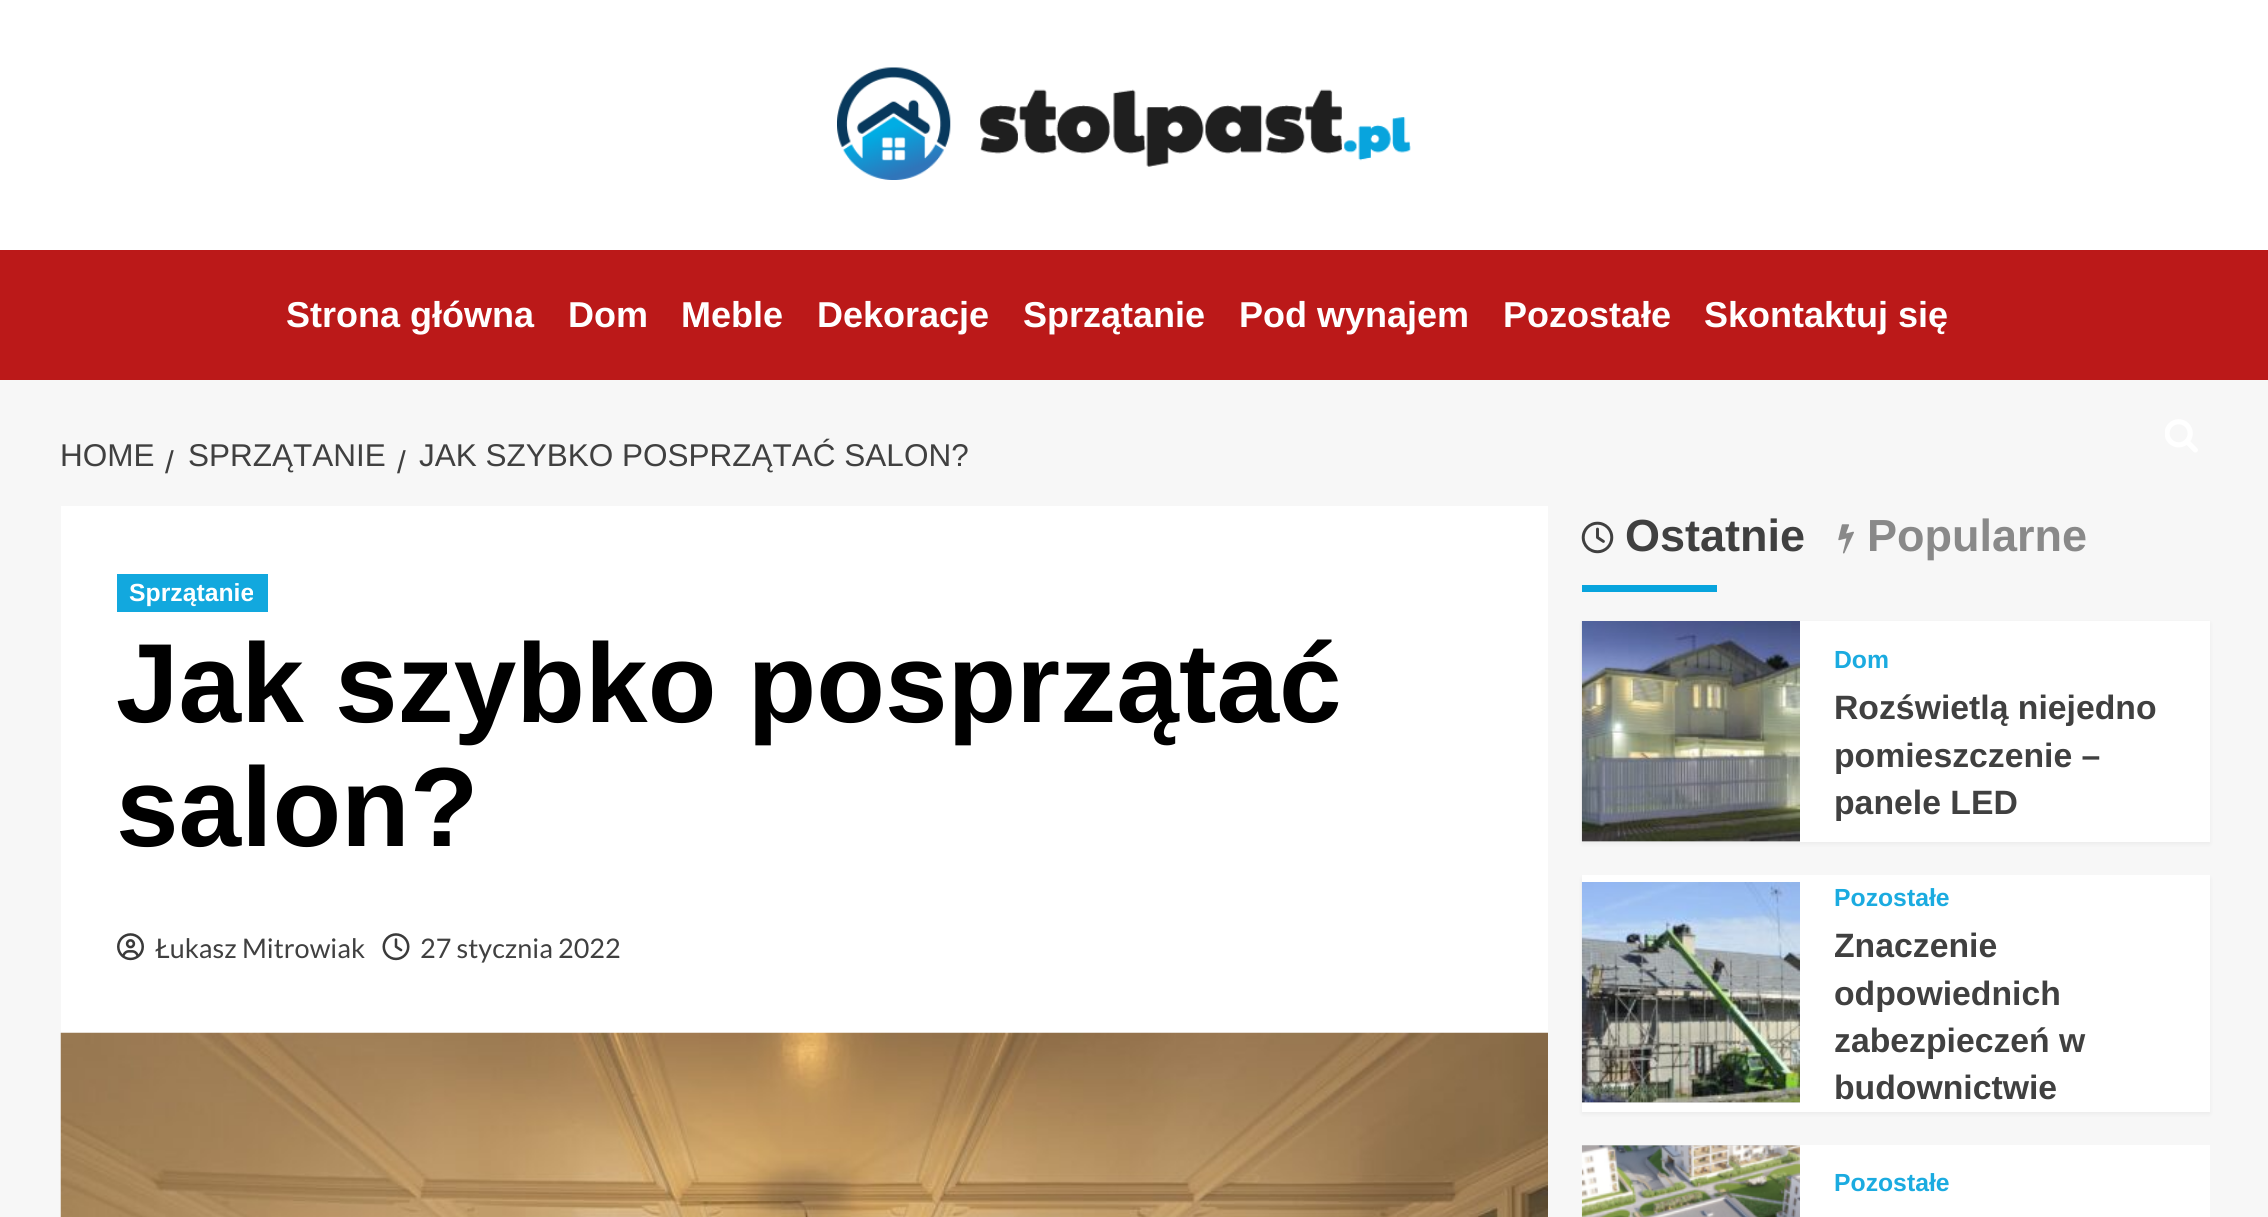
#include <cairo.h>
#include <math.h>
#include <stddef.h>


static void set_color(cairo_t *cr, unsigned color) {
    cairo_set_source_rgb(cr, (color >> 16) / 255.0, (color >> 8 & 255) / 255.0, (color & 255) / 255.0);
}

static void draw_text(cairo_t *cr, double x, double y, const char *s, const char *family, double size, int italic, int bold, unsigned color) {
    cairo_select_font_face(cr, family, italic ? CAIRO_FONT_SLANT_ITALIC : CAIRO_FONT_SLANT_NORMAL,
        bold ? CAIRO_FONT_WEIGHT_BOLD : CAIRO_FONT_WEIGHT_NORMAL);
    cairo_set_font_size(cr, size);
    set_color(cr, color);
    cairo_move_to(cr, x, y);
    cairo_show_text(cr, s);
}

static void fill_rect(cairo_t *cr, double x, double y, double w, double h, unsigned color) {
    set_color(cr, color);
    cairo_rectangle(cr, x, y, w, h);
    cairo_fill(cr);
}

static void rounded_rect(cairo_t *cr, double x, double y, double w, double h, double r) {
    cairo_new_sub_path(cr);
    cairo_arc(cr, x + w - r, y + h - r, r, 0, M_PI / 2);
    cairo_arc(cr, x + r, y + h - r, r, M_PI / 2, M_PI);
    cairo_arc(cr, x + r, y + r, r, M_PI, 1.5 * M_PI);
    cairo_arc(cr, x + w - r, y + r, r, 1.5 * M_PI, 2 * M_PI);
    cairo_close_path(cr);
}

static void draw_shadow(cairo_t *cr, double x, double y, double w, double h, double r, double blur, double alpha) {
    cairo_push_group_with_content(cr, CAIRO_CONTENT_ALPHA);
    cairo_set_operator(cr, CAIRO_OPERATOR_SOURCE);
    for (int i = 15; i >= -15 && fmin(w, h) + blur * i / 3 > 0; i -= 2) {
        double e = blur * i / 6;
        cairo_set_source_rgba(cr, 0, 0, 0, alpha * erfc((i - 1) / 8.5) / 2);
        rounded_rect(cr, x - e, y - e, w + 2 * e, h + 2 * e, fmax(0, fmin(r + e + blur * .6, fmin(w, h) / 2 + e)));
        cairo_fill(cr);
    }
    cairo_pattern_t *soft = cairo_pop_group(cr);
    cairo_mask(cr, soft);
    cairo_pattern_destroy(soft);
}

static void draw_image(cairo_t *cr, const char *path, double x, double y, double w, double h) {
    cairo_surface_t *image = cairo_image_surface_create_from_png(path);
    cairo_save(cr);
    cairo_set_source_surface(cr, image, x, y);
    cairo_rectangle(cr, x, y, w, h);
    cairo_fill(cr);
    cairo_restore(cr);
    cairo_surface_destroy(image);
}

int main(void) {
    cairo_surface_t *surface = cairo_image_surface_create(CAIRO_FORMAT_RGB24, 2268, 1217);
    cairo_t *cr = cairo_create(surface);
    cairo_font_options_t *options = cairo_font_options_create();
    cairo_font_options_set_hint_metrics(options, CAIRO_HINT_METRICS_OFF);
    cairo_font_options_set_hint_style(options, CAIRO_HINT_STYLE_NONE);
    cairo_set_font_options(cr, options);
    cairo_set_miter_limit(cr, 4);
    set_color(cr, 0xF7F7F7);
    cairo_paint(cr);
    fill_rect(cr, 0, 0, 2268, 250, 0xFFFFFF);
    draw_image(cr, "assets/img1.png", 837, 67, 574, 113);
    fill_rect(cr, 0, 250, 2268, 130, 0xBB1919);
    draw_text(cr, 286, 327, "Strona główna", "Liberation Sans", 36, 0, 1, 0xFFFFFF);
    draw_text(cr, 568, 327, "Dom", "Liberation Sans", 36, 0, 1, 0xFFFFFF);
    draw_text(cr, 681, 327, "Meble", "Liberation Sans", 36, 0, 1, 0xFFFFFF);
    draw_text(cr, 817, 327, "Dekoracje", "Liberation Sans", 36, 0, 1, 0xFFFFFF);
    draw_text(cr, 1023, 327, "Sprzątanie", "Liberation Sans", 36, 0, 1, 0xFFFFFF);
    draw_text(cr, 1239, 327, "Pod wynajem", "Liberation Sans", 36, 0, 1, 0xFFFFFF);
    draw_text(cr, 1503, 327, "Pozostałe", "Liberation Sans", 36, 0, 1, 0xFFFFFF);
    draw_text(cr, 1704, 327, "Skontaktuj się", "Liberation Sans", 36, 0, 1, 0xFFFFFF);
    draw_image(cr, "assets/img2.png", 2165, 419, 33, 34);
    draw_text(cr, 60, 466, "HOME", "Liberation Sans", 31.5, 0, 0, 0x404040);
    draw_text(cr, 165, 473, "/", "Liberation Sans", 31.5, 0, 0, 0x404040);
    draw_text(cr, 188, 466, "SPRZĄTANIE", "Liberation Sans", 31.5, 0, 0, 0x404040);
    draw_text(cr, 397, 473, "/", "Liberation Sans", 31.5, 0, 0, 0x404040);
    draw_text(cr, 419, 466, "JAK SZYBKO POSPRZĄTAĆ SALON?", "Liberation Sans", 31.5, 0, 0, 0x404040);
    fill_rect(cr, 61, 506, 1487, 527, 0xFFFFFF);
    fill_rect(cr, 117, 574, 151, 38, 0x12A8DE);
    draw_text(cr, 129, 601, "Sprzątanie", "Liberation Sans", 24.75, 0, 1, 0xFFFFFF);
    draw_text(cr, 116, 722, "Jak szybko posprzątać", "Liberation Sans", 112.5, 0, 1, 0x000000);
    draw_text(cr, 116, 846, "salon?", "Liberation Sans", 112.5, 0, 1, 0x000000);
    draw_image(cr, "assets/img3.png", 117, 933, 27, 28);
    draw_text(cr, 155, 958, "Łukasz Mitrowiak", "Lato", 27, 0, 0, 0x404040);
    draw_image(cr, "assets/img4.png", 382, 933, 28, 28);
    draw_text(cr, 420, 958, "27 stycznia 2022", "Lato", 27, 0, 0, 0x404040);
    draw_image(cr, "assets/img5.png", 60, 1032, 1488, 185);
    draw_image(cr, "assets/img6.png", 1581, 521, 33, 33);
    draw_text(cr, 1625, 551, "Ostatnie", "Liberation Sans", 45, 0, 1, 0x404040);
    fill_rect(cr, 1582, 585, 135, 7, 0x08A4DD);
    draw_image(cr, "assets/img7.png", 1838, 524, 16, 30);
    draw_text(cr, 1867, 551, "Popularne", "Liberation Sans", 45, 0, 1, 0x898989);
    set_color(cr, 0x000000);
    draw_shadow(cr, 1582, 623, 628, 221, 0, 2, 0.05);
    fill_rect(cr, 1800, 621, 410, 221, 0xFFFFFF);
    fill_rect(cr, 1582, 841, 218, 1, 0xD8D8D8);
    draw_image(cr, "assets/img8.png", 1581, 621, 219, 221);
    draw_text(cr, 1834, 668, "Dom", "Liberation Sans", 24.75, 0, 1, 0x1BABE0);
    draw_text(cr, 1834, 719, "Rozświetlą niejedno", "Liberation Sans", 33.75, 0, 1, 0x404040);
    draw_text(cr, 1834, 767, "pomieszczenie –", "Liberation Sans", 33.75, 0, 1, 0x404040);
    draw_text(cr, 1834, 814, "panele LED", "Liberation Sans", 33.75, 0, 1, 0x404040);
    set_color(cr, 0x000000);
    draw_shadow(cr, 1582, 878, 628, 236, 0, 2, 0.05);
    fill_rect(cr, 1582, 875, 628, 237, 0xFFFFFF);
    fill_rect(cr, 1582, 1102, 218, 1, 0xD8D8D8);
    draw_image(cr, "assets/img9.png", 1581, 882, 219, 221);
    draw_text(cr, 1834, 906, "Pozostałe", "Liberation Sans", 24.75, 0, 1, 0x1BABE0);
    draw_text(cr, 1834, 957, "Znaczenie", "Liberation Sans", 33.75, 0, 1, 0x404040);
    draw_text(cr, 1834, 1005, "odpowiednich", "Liberation Sans", 33.75, 0, 1, 0x404040);
    draw_text(cr, 1834, 1052, "zabezpieczeń w", "Liberation Sans", 33.75, 0, 1, 0x404040);
    draw_text(cr, 1834, 1099, "budownictwie", "Liberation Sans", 33.75, 0, 1, 0x404040);
    fill_rect(cr, 1800, 1145, 410, 72, 0xFFFFFF);
    fill_rect(cr, 1582, 1145, 218, 1, 0xD8D8D8);
    draw_image(cr, "assets/img10.png", 1581, 1145, 219, 72);
    draw_text(cr, 1834, 1191, "Pozostałe", "Liberation Sans", 24.75, 0, 1, 0x1BABE0);
    cairo_surface_write_to_png(surface, "output.png");
    cairo_font_options_destroy(options);
    cairo_destroy(cr);
    cairo_surface_destroy(surface);
    return 0;
}
